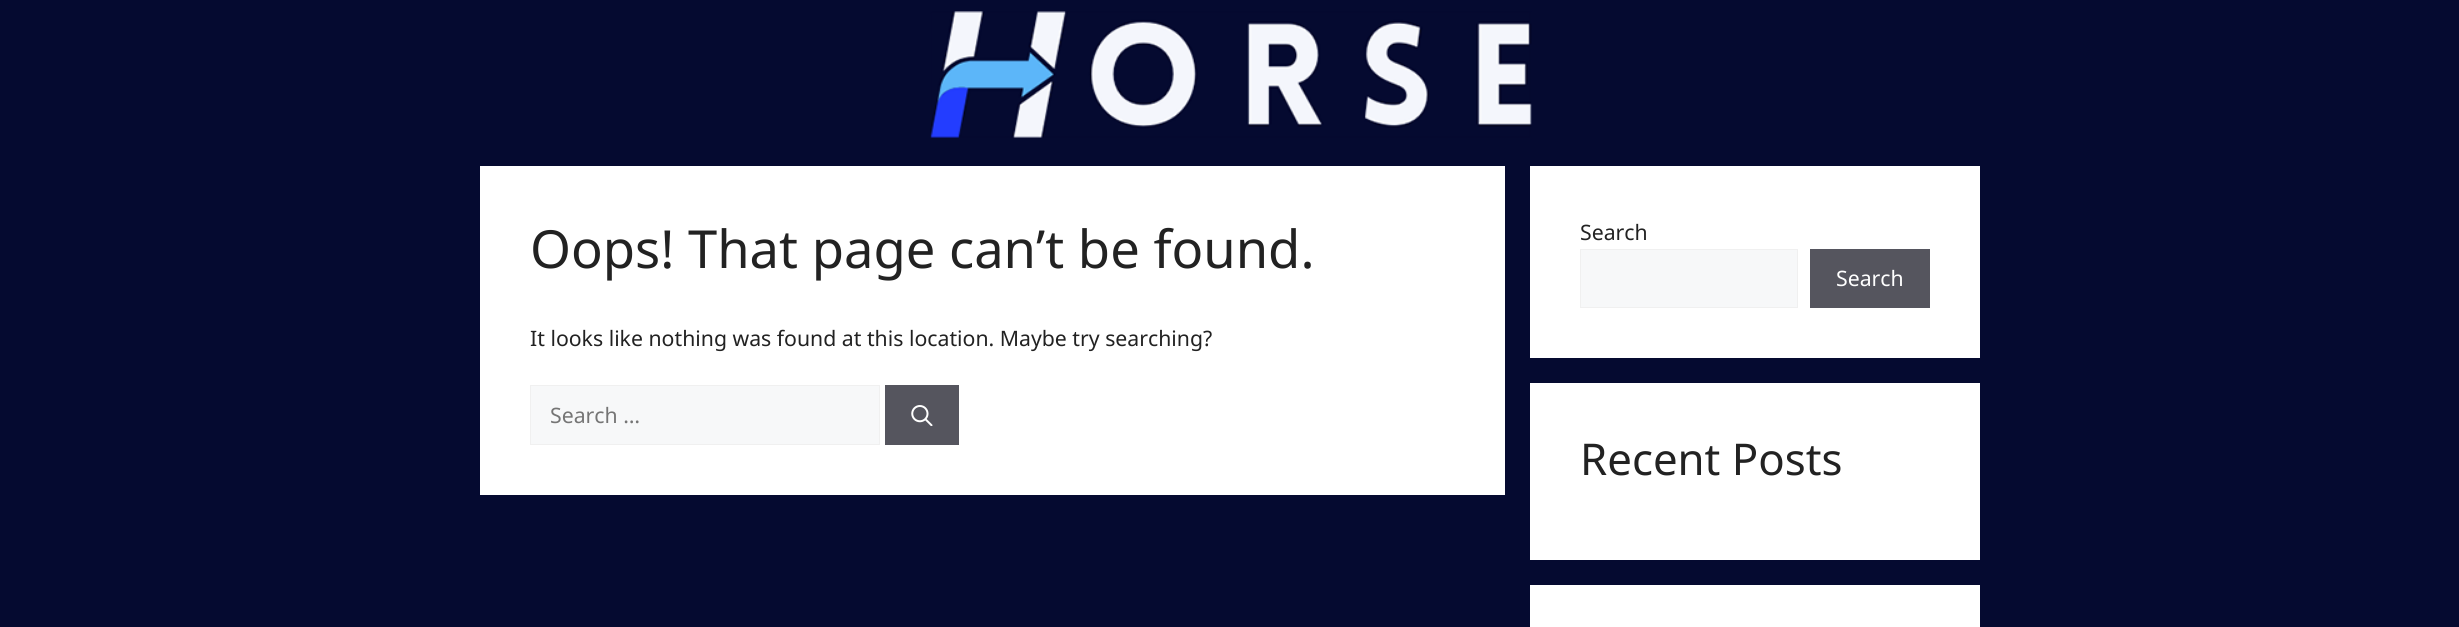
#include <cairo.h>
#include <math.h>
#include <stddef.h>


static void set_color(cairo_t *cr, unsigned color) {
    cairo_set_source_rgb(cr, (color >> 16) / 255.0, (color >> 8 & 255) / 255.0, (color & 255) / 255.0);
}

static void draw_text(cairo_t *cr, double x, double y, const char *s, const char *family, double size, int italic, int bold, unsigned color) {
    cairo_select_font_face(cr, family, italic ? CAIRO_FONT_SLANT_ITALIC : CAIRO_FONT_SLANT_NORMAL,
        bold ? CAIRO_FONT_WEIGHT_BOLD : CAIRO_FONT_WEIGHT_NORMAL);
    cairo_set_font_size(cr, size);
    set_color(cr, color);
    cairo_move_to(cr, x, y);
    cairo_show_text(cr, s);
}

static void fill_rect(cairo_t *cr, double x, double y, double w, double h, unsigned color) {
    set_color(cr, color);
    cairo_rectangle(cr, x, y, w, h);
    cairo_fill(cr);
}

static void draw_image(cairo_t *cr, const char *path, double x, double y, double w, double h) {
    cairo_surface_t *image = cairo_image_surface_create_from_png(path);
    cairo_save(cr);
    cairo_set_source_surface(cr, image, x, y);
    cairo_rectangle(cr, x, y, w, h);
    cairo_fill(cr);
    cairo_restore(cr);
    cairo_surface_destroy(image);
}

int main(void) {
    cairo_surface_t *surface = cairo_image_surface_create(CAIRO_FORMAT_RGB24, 2459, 627);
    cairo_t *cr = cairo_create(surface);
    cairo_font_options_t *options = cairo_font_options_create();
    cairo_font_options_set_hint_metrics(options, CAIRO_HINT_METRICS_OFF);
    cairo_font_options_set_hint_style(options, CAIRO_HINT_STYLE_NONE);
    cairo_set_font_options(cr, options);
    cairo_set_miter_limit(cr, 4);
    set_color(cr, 0x050A30);
    cairo_paint(cr);
    draw_image(cr, "assets/img1.png", 930, 11, 602, 127);
    fill_rect(cr, 480, 166, 1025, 329, 0xFFFFFF);
    draw_text(cr, 530, 268, "Oops! That page can’t be found.", "Noto Sans", 52.5, 0, 0, 0x222222);
    draw_text(cr, 530, 346, "It looks like nothing was found at this location. Maybe try searching?", "Noto Sans", 21.25, 0, 0, 0x222222);
    set_color(cr, 0xF7F8F9);
    cairo_rectangle(cr, 530.5, 385.5, 349, 59);
    cairo_fill_preserve(cr);
    set_color(cr, 0xF0F0F0);
    cairo_set_line_width(cr, 1);
    cairo_stroke(cr);
    draw_text(cr, 550, 423, "Search …", "Noto Sans", 21.25, 0, 0, 0x757575);
    fill_rect(cr, 885, 385, 74, 60, 0x55555E);
    draw_image(cr, "assets/img2.png", 911, 405, 22, 21);
    fill_rect(cr, 1530, 166, 450, 192, 0xFFFFFF);
    draw_text(cr, 1580, 240, "Search", "Noto Sans", 21.25, 0, 0, 0x222222);
    set_color(cr, 0xF7F8F9);
    cairo_rectangle(cr, 1580.5, 249.5, 217, 58);
    cairo_fill_preserve(cr);
    set_color(cr, 0xF0F0F0);
    cairo_stroke(cr);
    fill_rect(cr, 1810, 249, 120, 59, 0x55555E);
    draw_text(cr, 1836, 286, "Search", "Noto Sans", 21.25, 0, 0, 0xFFFFFF);
    fill_rect(cr, 1530, 383, 450, 177, 0xFFFFFF);
    draw_text(cr, 1580, 475, "Recent Posts", "Noto Sans", 43.75, 0, 0, 0x222222);
    fill_rect(cr, 1530, 585, 450, 42, 0xFFFFFF);
    cairo_surface_write_to_png(surface, "output.png");
    cairo_font_options_destroy(options);
    cairo_destroy(cr);
    cairo_surface_destroy(surface);
    return 0;
}
